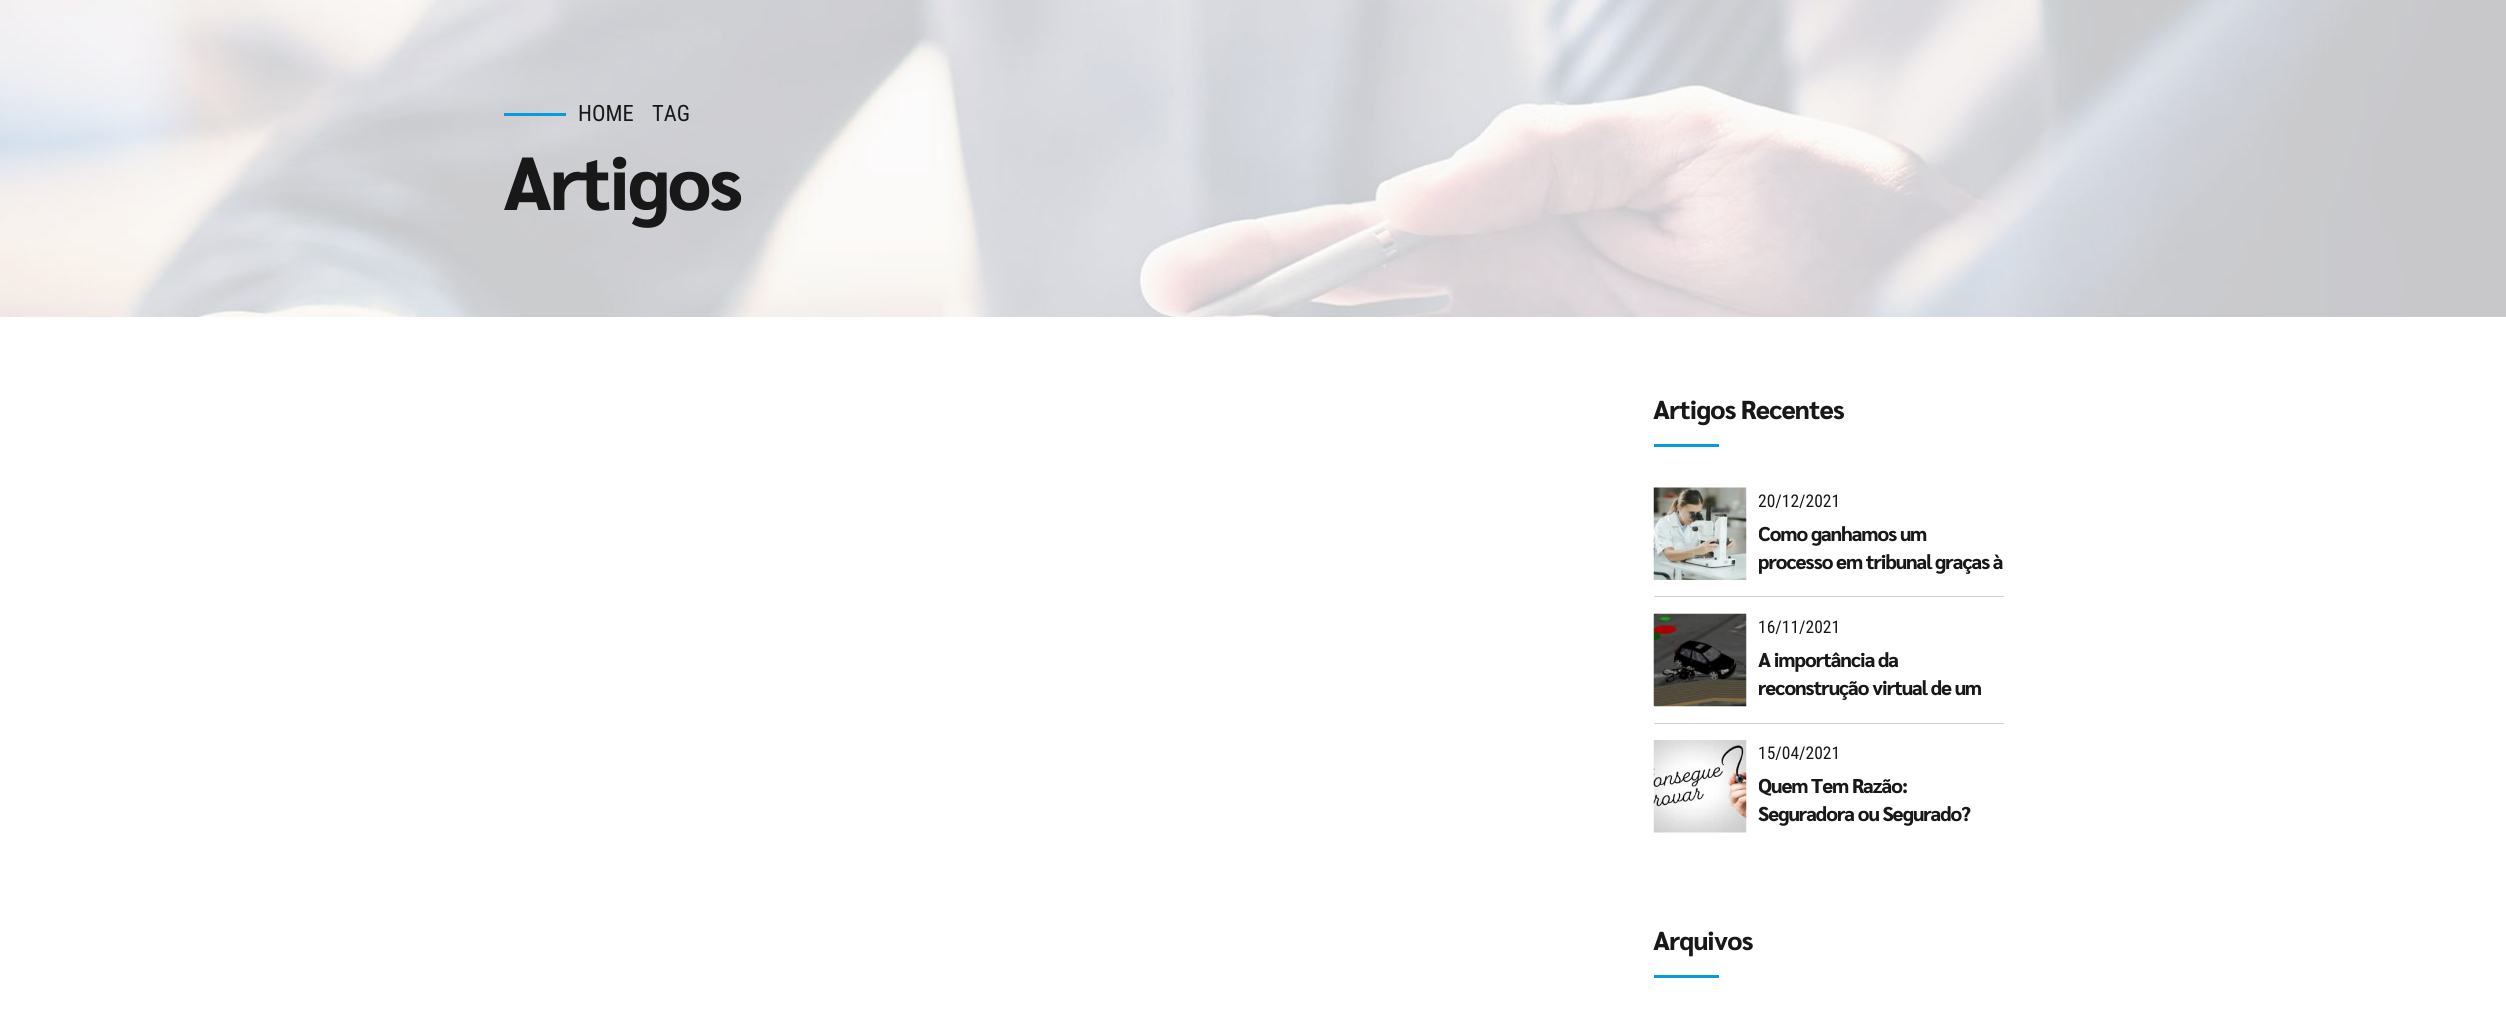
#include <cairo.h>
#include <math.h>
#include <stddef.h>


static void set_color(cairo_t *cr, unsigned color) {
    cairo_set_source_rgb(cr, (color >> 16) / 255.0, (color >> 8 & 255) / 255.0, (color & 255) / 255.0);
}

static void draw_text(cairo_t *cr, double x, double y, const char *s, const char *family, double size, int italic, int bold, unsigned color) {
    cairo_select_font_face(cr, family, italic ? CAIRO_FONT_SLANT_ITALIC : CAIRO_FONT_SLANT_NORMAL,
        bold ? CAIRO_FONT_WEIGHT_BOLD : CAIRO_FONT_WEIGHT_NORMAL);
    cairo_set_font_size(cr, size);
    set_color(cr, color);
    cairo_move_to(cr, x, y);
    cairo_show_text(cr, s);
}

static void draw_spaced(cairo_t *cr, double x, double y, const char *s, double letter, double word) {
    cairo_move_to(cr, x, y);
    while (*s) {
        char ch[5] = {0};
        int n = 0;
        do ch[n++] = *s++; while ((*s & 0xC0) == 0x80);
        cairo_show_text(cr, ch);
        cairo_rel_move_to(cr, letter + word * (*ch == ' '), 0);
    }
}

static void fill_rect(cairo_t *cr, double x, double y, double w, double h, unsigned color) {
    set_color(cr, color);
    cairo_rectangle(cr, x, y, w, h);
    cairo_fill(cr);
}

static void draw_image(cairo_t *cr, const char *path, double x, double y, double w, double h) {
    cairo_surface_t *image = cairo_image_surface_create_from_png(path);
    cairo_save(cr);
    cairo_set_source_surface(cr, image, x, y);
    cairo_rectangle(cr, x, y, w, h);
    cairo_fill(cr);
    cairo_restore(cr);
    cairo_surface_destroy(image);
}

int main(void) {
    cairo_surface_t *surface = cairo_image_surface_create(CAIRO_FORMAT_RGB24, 2506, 1014);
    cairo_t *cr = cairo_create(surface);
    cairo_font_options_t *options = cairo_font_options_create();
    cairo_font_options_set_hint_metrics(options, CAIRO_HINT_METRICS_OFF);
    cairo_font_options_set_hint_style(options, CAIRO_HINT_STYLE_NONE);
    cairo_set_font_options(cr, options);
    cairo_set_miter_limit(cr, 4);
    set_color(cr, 0xFFFFFF);
    cairo_paint(cr);
    draw_image(cr, "assets/img1.png", 0, 0, 2506, 317);
    fill_rect(cr, 504, 113, 62, 3, 0x069BDD);
    draw_text(cr, 578, 121, "HOME", "Roboto Condensed", 22.5, 0, 0, 0x181818);
    draw_text(cr, 652, 121, "TAG", "Roboto Condensed", 22.5, 0, 0, 0x181818);
    cairo_select_font_face(cr, "Sarabun ExtraBold", CAIRO_FONT_SLANT_NORMAL, CAIRO_FONT_WEIGHT_NORMAL);
    cairo_set_font_size(cr, 75);
    draw_spaced(cr, 503, 210, "Artigos", -2.25, 0);
    cairo_set_font_size(cr, 26);
    draw_spaced(cr, 1653, 419, "Artigos Recentes", -0.75, 0);
    fill_rect(cr, 1654, 444, 65, 3, 0x069BDD);
    fill_rect(cr, 1654, 596, 350, 1, 0xD1D1D1);
    draw_image(cr, "assets/img2.png", 1653, 487, 94, 93);
    draw_text(cr, 1758, 507, "20/12/2021", "Roboto Condensed", 17.5, 0, 0, 0x181818);
    cairo_save(cr);
    cairo_rectangle(cr, 1759, 520, 245, 56);
    cairo_clip(cr);
    cairo_select_font_face(cr, "Sarabun ExtraBold", CAIRO_FONT_SLANT_NORMAL, CAIRO_FONT_WEIGHT_NORMAL);
    cairo_set_font_size(cr, 20);
    draw_spaced(cr, 1758, 541, "Como ganhamos um", -0.95, 0);
    cairo_restore(cr);
    cairo_select_font_face(cr, "Sarabun ExtraBold", CAIRO_FONT_SLANT_NORMAL, CAIRO_FONT_WEIGHT_NORMAL);
    cairo_set_font_size(cr, 20);
    draw_spaced(cr, 1758, 569, "processo em tribunal graças à", -0.95, 0);
    fill_rect(cr, 1654, 723, 350, 1, 0xD1D1D1);
    draw_image(cr, "assets/img3.png", 1653, 613, 94, 94);
    draw_text(cr, 1758, 633, "16/11/2021", "Roboto Condensed", 17.5, 0, 0, 0x181818);
    cairo_select_font_face(cr, "Sarabun ExtraBold", CAIRO_FONT_SLANT_NORMAL, CAIRO_FONT_WEIGHT_NORMAL);
    cairo_set_font_size(cr, 20);
    draw_spaced(cr, 1758, 667, "A importância da", -0.95, 0);
    draw_spaced(cr, 1758, 695, "reconstrução virtual de um", -0.95, 0);
    draw_image(cr, "assets/img4.png", 1653, 740, 94, 93);
    draw_text(cr, 1758, 759, "15/04/2021", "Roboto Condensed", 17.5, 0, 0, 0x181818);
    cairo_save(cr);
    cairo_rectangle(cr, 1759, 771, 245, 57);
    cairo_clip(cr);
    cairo_select_font_face(cr, "Sarabun ExtraBold", CAIRO_FONT_SLANT_NORMAL, CAIRO_FONT_WEIGHT_NORMAL);
    cairo_set_font_size(cr, 20);
    draw_spaced(cr, 1758, 793, "Quem Tem Razão:", -0.95, 0);
    cairo_restore(cr);
    cairo_select_font_face(cr, "Sarabun ExtraBold", CAIRO_FONT_SLANT_NORMAL, CAIRO_FONT_WEIGHT_NORMAL);
    cairo_set_font_size(cr, 20);
    draw_spaced(cr, 1758, 821, "Seguradora ou Segurado?", -0.95, 0);
    cairo_set_font_size(cr, 26);
    draw_spaced(cr, 1653, 950, "Arquivos", -0.75, 0);
    fill_rect(cr, 1654, 975, 65, 3, 0x069BDD);
    cairo_surface_write_to_png(surface, "output.png");
    cairo_font_options_destroy(options);
    cairo_destroy(cr);
    cairo_surface_destroy(surface);
    return 0;
}
